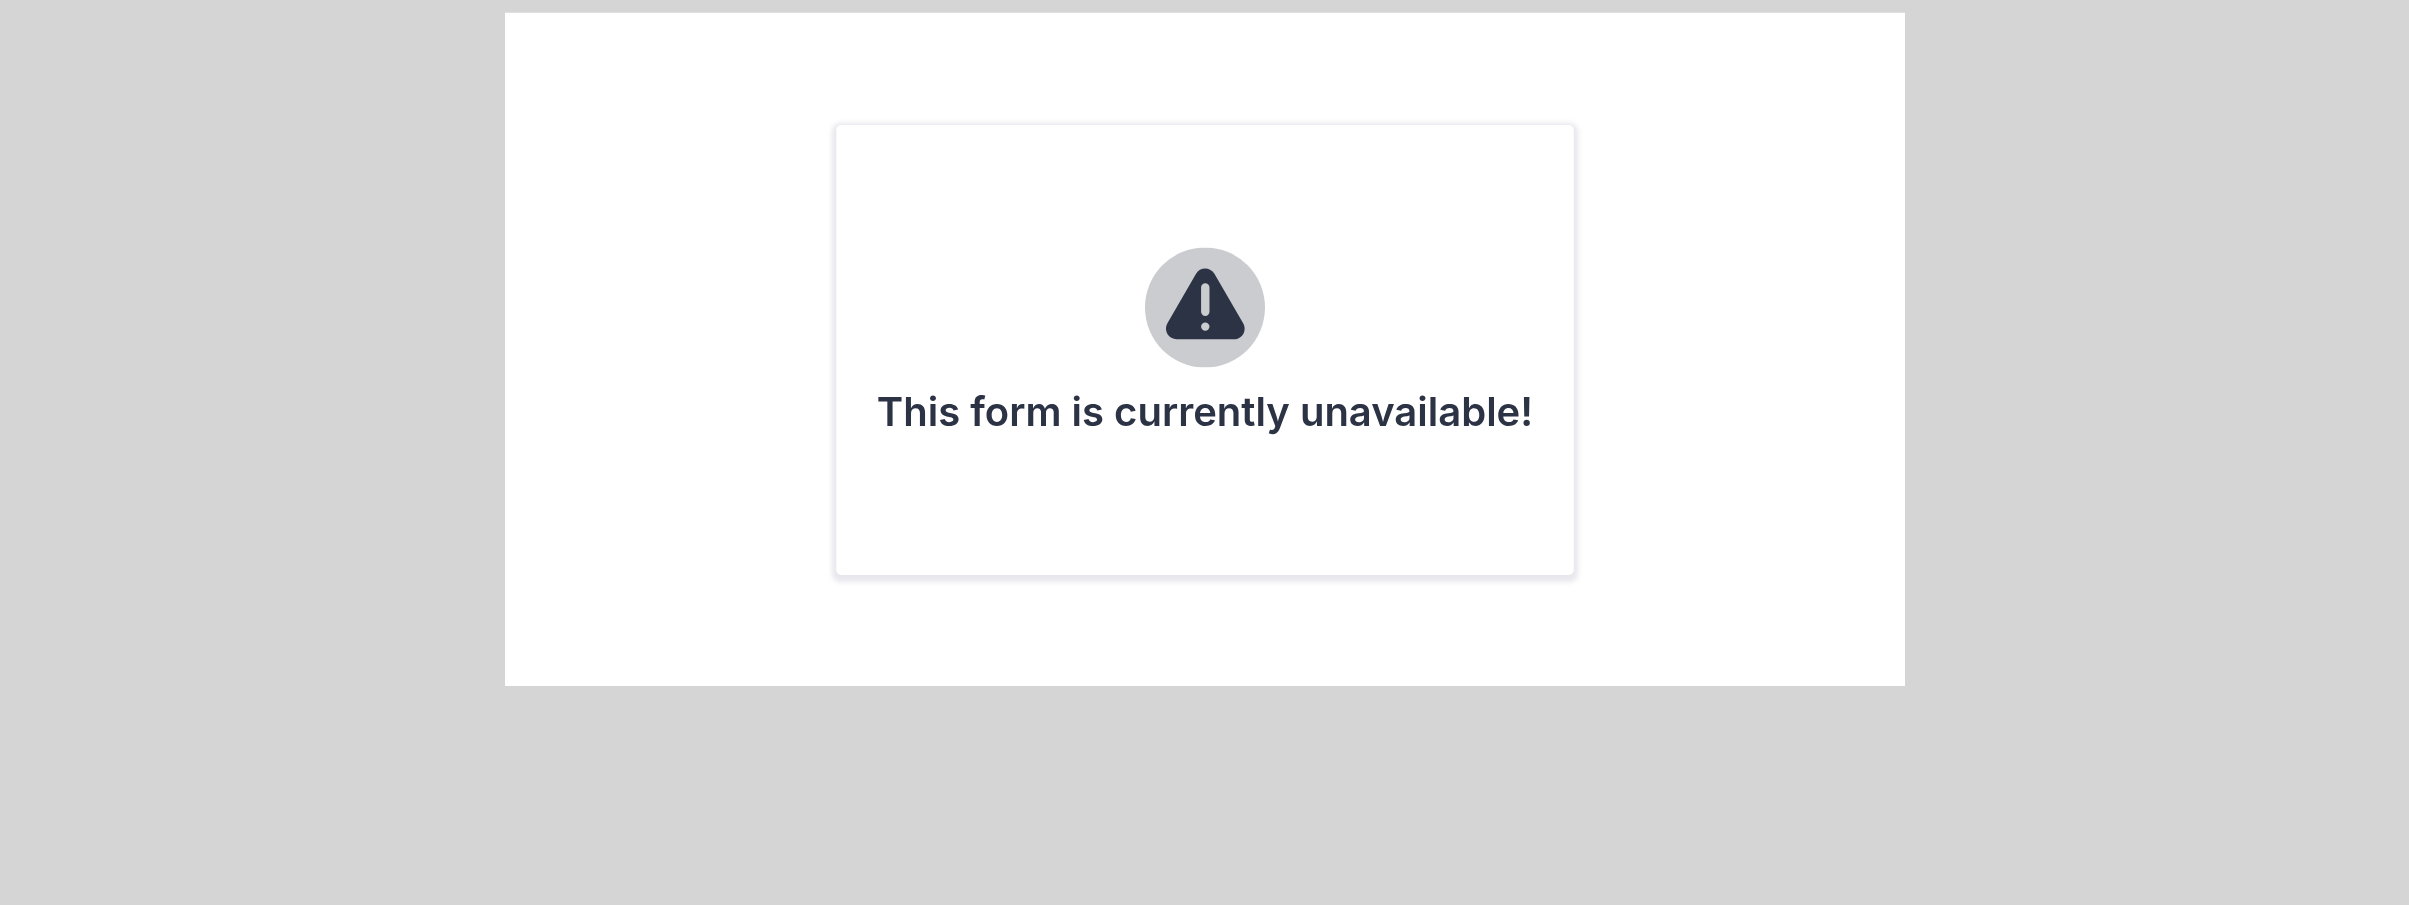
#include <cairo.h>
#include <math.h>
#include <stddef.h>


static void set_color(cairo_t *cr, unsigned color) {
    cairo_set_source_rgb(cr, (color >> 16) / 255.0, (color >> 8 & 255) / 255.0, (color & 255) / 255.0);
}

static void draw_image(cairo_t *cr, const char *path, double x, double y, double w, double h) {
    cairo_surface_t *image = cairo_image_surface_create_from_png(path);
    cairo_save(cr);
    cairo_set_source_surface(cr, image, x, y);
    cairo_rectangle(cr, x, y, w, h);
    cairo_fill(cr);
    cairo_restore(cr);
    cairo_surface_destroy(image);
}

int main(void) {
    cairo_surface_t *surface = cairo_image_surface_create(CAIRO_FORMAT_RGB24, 2409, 905);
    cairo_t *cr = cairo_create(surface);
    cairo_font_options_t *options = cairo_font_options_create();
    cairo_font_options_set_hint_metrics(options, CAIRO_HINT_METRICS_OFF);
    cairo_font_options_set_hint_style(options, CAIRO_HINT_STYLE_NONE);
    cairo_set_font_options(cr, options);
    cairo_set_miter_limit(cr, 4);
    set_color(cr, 0xD5D5D5);
    cairo_paint(cr);
    draw_image(cr, "assets/img1.png", 505, 12, 1400, 674);
    cairo_surface_write_to_png(surface, "output.png");
    cairo_font_options_destroy(options);
    cairo_destroy(cr);
    cairo_surface_destroy(surface);
    return 0;
}
